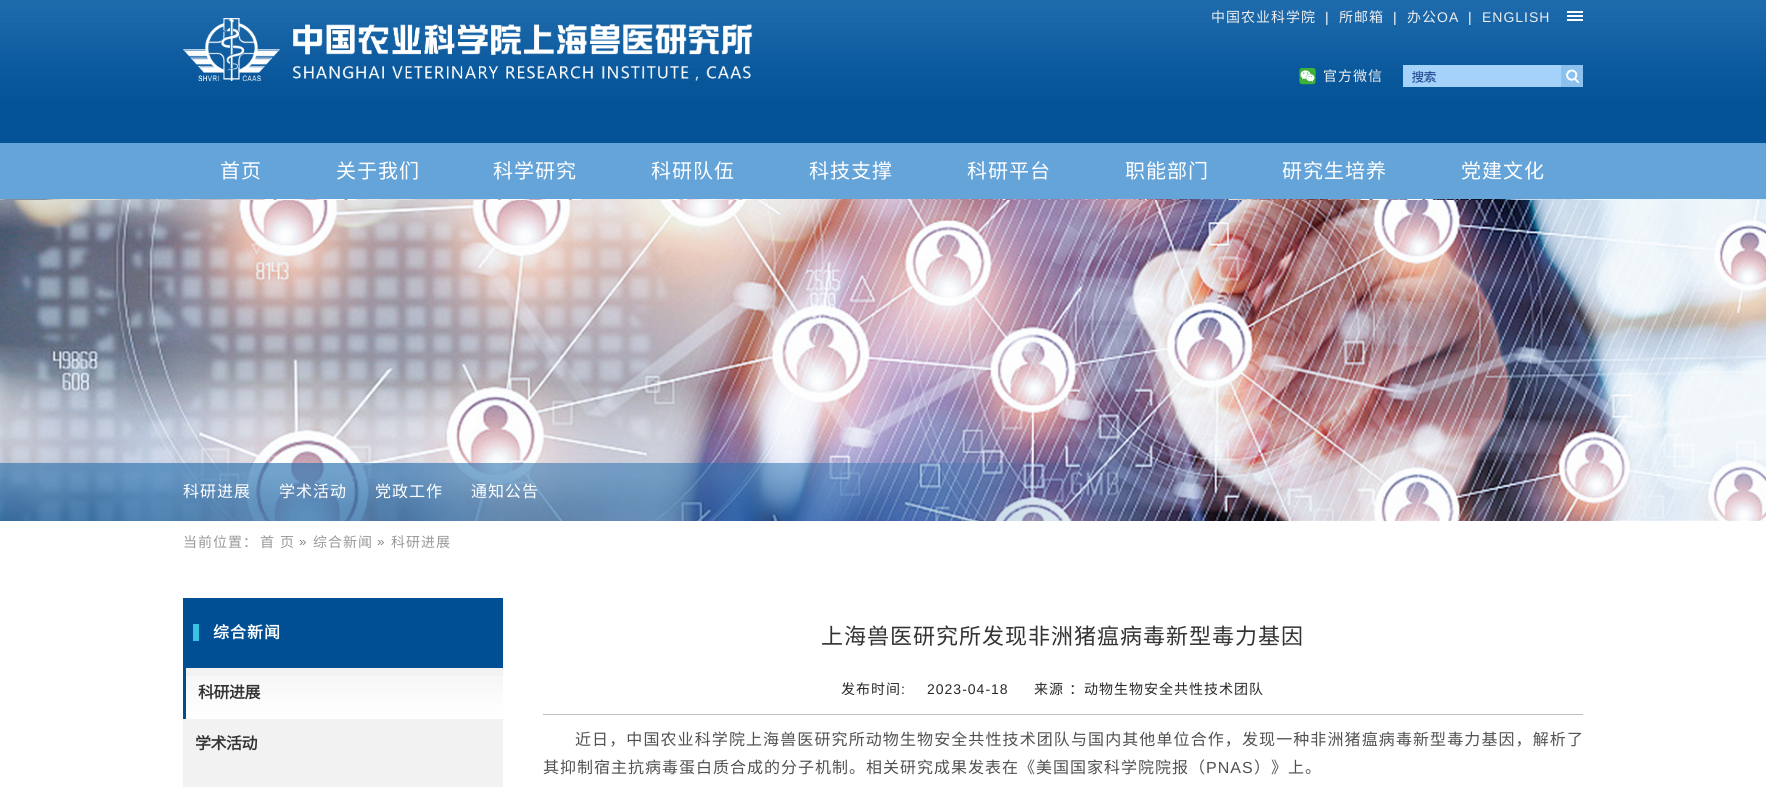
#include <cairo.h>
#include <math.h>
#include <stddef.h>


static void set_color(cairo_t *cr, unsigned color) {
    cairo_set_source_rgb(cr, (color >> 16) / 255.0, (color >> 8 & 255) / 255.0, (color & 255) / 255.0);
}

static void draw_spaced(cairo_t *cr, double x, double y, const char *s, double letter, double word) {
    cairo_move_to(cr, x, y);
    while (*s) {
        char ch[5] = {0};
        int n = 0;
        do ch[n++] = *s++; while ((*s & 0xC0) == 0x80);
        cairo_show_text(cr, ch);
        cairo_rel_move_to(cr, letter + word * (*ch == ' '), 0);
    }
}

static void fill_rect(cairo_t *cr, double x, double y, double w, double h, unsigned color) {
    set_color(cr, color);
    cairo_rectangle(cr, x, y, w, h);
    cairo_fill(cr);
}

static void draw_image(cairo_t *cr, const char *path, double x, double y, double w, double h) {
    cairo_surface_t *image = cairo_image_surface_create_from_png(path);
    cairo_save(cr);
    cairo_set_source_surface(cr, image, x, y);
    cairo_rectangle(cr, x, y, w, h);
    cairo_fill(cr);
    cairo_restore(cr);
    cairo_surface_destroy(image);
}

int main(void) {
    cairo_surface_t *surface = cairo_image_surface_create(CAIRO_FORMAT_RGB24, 1766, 787);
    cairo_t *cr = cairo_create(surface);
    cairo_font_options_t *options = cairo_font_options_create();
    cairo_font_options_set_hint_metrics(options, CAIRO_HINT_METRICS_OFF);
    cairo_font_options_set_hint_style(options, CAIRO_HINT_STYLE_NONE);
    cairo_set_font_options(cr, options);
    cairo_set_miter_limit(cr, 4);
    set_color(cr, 0xFFFFFF);
    cairo_paint(cr);
    draw_image(cr, "assets/img1.png", 0, 0, 1766, 143);
    draw_image(cr, "assets/img2.png", 183, 18, 570, 63);
    cairo_select_font_face(cr, "Noto Sans CJK SC", CAIRO_FONT_SLANT_NORMAL, CAIRO_FONT_WEIGHT_NORMAL);
    cairo_set_font_size(cr, 14);
    set_color(cr, 0xEEEEEE);
    draw_spaced(cr, 1211, 22, "中国农业科学院", 1, 0);
    cairo_select_font_face(cr, "Liberation Sans", CAIRO_FONT_SLANT_NORMAL, CAIRO_FONT_WEIGHT_NORMAL);
    set_color(cr, 0xFFFFFF);
    draw_spaced(cr, 1325, 22, "|", 1, 0);
    cairo_select_font_face(cr, "Noto Sans CJK SC", CAIRO_FONT_SLANT_NORMAL, CAIRO_FONT_WEIGHT_NORMAL);
    set_color(cr, 0xEEEEEE);
    draw_spaced(cr, 1339, 22, "所邮箱", 1, 0);
    cairo_select_font_face(cr, "Liberation Sans", CAIRO_FONT_SLANT_NORMAL, CAIRO_FONT_WEIGHT_NORMAL);
    set_color(cr, 0xFFFFFF);
    draw_spaced(cr, 1393, 22, "|", 1, 0);
    cairo_select_font_face(cr, "Noto Sans CJK SC", CAIRO_FONT_SLANT_NORMAL, CAIRO_FONT_WEIGHT_NORMAL);
    set_color(cr, 0xEEEEEE);
    draw_spaced(cr, 1407, 22, "办公", 1, 0);
    cairo_select_font_face(cr, "Liberation Sans", CAIRO_FONT_SLANT_NORMAL, CAIRO_FONT_WEIGHT_NORMAL);
    draw_spaced(cr, 1437, 22, "OA", 1, 0);
    set_color(cr, 0xFFFFFF);
    draw_spaced(cr, 1468, 22, "|", 1, 0);
    set_color(cr, 0xEEEEEE);
    draw_spaced(cr, 1482, 22, "ENGLISH", 1, 0);
    fill_rect(cr, 1567, 11, 16, 2, 0xFFFFFF);
    fill_rect(cr, 1567, 15, 16, 2, 0xFFFFFF);
    fill_rect(cr, 1567, 19, 16, 2, 0xFFFFFF);
    draw_image(cr, "assets/img3.png", 1299, 68, 17, 17);
    cairo_select_font_face(cr, "Noto Sans CJK SC", CAIRO_FONT_SLANT_NORMAL, CAIRO_FONT_WEIGHT_NORMAL);
    set_color(cr, 0xEEEEEE);
    draw_spaced(cr, 1323, 81, "官方微信", 1, 0);
    draw_image(cr, "assets/img4.png", 1403, 65, 180, 22);
    fill_rect(cr, 0, 143, 1766, 56, 0x64A4D9);
    cairo_set_font_size(cr, 20);
    set_color(cr, 0xFFFFFF);
    draw_spaced(cr, 220, 178, "首页", 1, 0);
    draw_spaced(cr, 336, 178, "关于我们", 1, 0);
    draw_spaced(cr, 493, 178, "科学研究", 1, 0);
    draw_spaced(cr, 651, 178, "科研队伍", 1, 0);
    draw_spaced(cr, 809, 178, "科技支撑", 1, 0);
    draw_spaced(cr, 967, 178, "科研平台", 1, 0);
    draw_spaced(cr, 1125, 178, "职能部门", 1, 0);
    draw_spaced(cr, 1282, 178, "研究生培养", 1, 0);
    draw_spaced(cr, 1461, 178, "党建文化", 1, 0);
    draw_image(cr, "assets/img5.png", 0, 199, 1766, 322);
    draw_image(cr, "assets/img6.png", 0, 463, 1360, 58);
    cairo_set_font_size(cr, 16);
    draw_spaced(cr, 183, 497, "科研进展", 1, 0);
    draw_spaced(cr, 279, 497, "学术活动", 1, 0);
    draw_spaced(cr, 375, 497, "党政工作", 1, 0);
    draw_spaced(cr, 471, 497, "通知公告", 1, 0);
    cairo_set_font_size(cr, 14);
    set_color(cr, 0x999999);
    draw_spaced(cr, 183, 547, "当前位置：", 1, 0);
    draw_spaced(cr, 260, 547, "首", 1, 0);
    draw_spaced(cr, 280, 547, "页", 1, 0);
    draw_image(cr, "assets/img7.png", 299, 540, 7, 5);
    draw_spaced(cr, 313, 547, "综合新闻", 1, 0);
    draw_image(cr, "assets/img7.png", 377, 540, 7, 5);
    draw_spaced(cr, 391, 547, "科研进展", 1, 0);
    fill_rect(cr, 183, 598, 320, 70, 0x004F94);
    fill_rect(cr, 193, 624, 6, 17, 0x37C4E2);
    cairo_select_font_face(cr, "Noto Sans CJK SC", CAIRO_FONT_SLANT_NORMAL, CAIRO_FONT_WEIGHT_BOLD);
    cairo_set_font_size(cr, 16);
    set_color(cr, 0xFFFFFF);
    draw_spaced(cr, 213, 638, "综合新闻", 1, 0);
    fill_rect(cr, 183, 668, 320, 119, 0xF2F2F2);
    draw_image(cr, "assets/img8.png", 186, 676, 317, 43);
    fill_rect(cr, 183, 668, 3, 51, 0x004F94);
    set_color(cr, 0x333333);
    draw_spaced(cr, 198, 698, "科研进展", -0.5, 0);
    draw_spaced(cr, 195, 749, "学术活动", -0.5, 0);
    cairo_select_font_face(cr, "Noto Sans CJK SC", CAIRO_FONT_SLANT_NORMAL, CAIRO_FONT_WEIGHT_NORMAL);
    cairo_set_font_size(cr, 22);
    draw_spaced(cr, 821, 644, "上海兽医研究所发现非洲猪瘟病毒新型毒力基因", 1, 0);
    fill_rect(cr, 543, 714, 1040, 1, 0xBFBFBF);
    cairo_set_font_size(cr, 14);
    set_color(cr, 0x282828);
    draw_spaced(cr, 841, 694, "发布时间", 1, 0);
    cairo_select_font_face(cr, "Liberation Sans", CAIRO_FONT_SLANT_NORMAL, CAIRO_FONT_WEIGHT_NORMAL);
    draw_spaced(cr, 901, 694, ":", 1, 0);
    draw_spaced(cr, 927, 694, "2023-04-18", 1, 0);
    cairo_select_font_face(cr, "Noto Sans CJK SC", CAIRO_FONT_SLANT_NORMAL, CAIRO_FONT_WEIGHT_NORMAL);
    draw_spaced(cr, 1034, 694, "来源 ：", 1, 1);
    draw_spaced(cr, 1084, 694, "动物生物安全共性技术团队", 1, 0);
    cairo_set_font_size(cr, 16);
    set_color(cr, 0x515151);
    draw_spaced(cr, 575, 745, "近日，中国农业科学院上海兽医研究所动物生物安全共性技术团队与国内其他单位合作，发现一种非洲猪瘟病毒新型毒力基因，解析了", 1.1, 0);
    draw_spaced(cr, 543, 773, "其抑制宿主抗病毒蛋白质合成的分子机制。相关研究成果发表在《美国国家科学院院报（", 1, 0);
    cairo_select_font_face(cr, "Liberation Sans", CAIRO_FONT_SLANT_NORMAL, CAIRO_FONT_WEIGHT_NORMAL);
    draw_spaced(cr, 1206, 773, "PNAS", 1, 0);
    cairo_select_font_face(cr, "Noto Sans CJK SC", CAIRO_FONT_SLANT_NORMAL, CAIRO_FONT_WEIGHT_NORMAL);
    draw_spaced(cr, 1254, 773, "）》上。", 1, 0);
    cairo_surface_write_to_png(surface, "output.png");
    cairo_font_options_destroy(options);
    cairo_destroy(cr);
    cairo_surface_destroy(surface);
    return 0;
}
